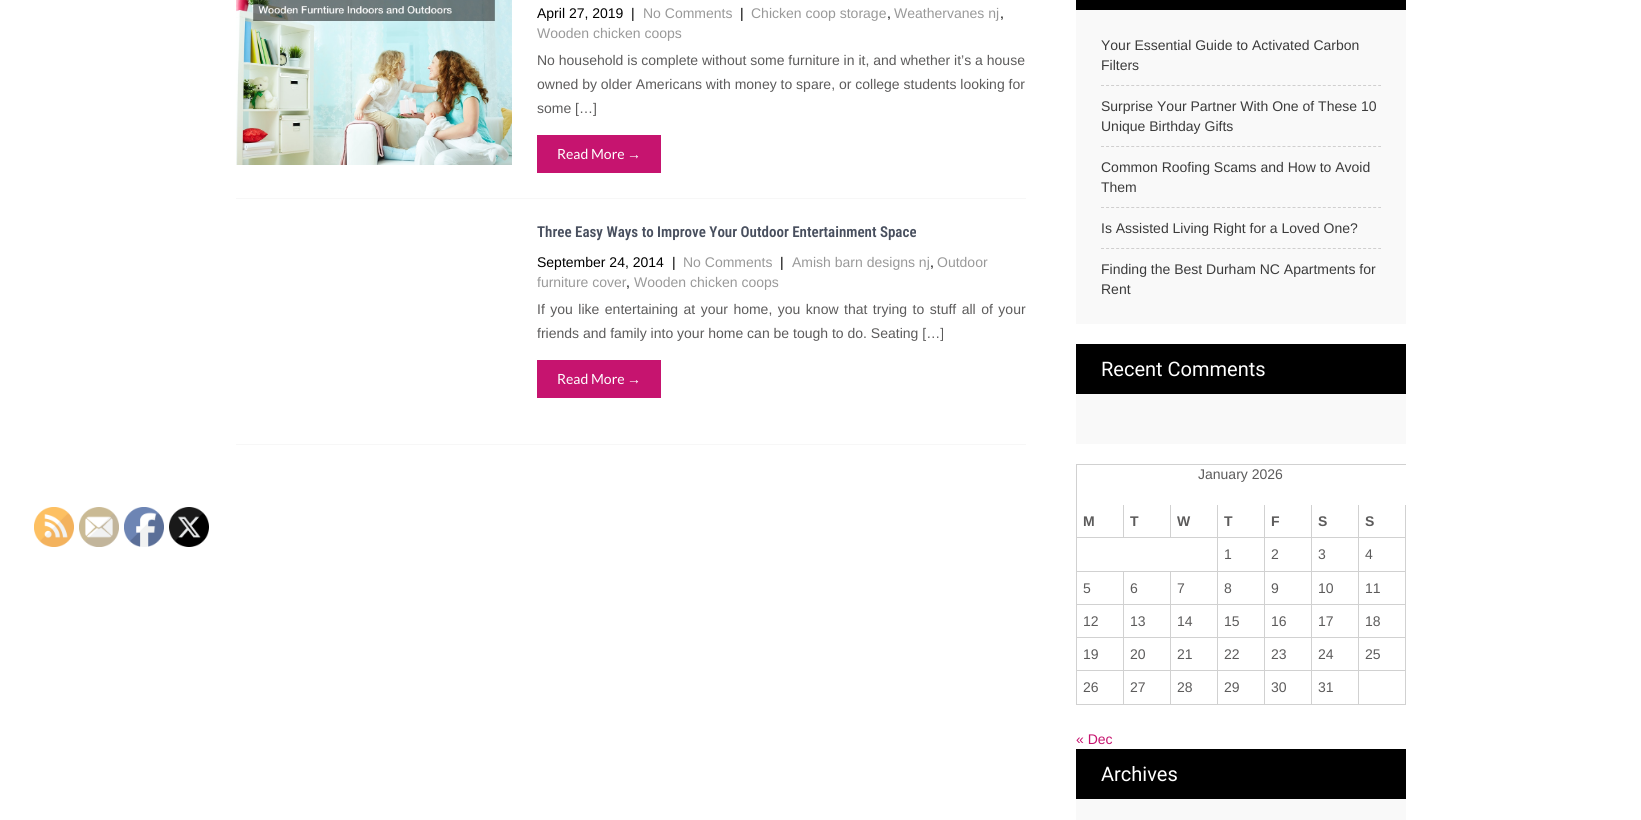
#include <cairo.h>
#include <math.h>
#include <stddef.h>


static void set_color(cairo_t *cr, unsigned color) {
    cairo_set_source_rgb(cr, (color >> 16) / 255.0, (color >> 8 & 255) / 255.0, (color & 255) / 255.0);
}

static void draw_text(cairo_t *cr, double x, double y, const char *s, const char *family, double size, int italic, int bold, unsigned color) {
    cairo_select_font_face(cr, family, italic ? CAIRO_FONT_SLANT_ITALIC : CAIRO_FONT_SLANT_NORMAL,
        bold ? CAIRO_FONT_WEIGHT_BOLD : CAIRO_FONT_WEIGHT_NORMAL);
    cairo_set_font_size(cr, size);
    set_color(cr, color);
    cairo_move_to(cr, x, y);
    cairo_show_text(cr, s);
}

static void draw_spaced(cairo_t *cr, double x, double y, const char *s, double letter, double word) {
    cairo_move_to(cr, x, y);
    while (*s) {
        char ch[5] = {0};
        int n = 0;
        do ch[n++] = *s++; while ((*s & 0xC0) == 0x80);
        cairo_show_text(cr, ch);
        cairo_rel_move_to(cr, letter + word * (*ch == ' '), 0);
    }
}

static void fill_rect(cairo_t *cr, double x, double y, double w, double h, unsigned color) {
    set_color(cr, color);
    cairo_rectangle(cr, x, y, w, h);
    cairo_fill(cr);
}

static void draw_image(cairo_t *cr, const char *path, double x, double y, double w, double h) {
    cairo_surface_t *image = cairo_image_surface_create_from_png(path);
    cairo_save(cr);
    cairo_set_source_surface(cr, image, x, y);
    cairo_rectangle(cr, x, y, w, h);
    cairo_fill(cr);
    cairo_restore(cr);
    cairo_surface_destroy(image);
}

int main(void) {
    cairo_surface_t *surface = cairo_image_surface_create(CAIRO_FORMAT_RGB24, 1641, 820);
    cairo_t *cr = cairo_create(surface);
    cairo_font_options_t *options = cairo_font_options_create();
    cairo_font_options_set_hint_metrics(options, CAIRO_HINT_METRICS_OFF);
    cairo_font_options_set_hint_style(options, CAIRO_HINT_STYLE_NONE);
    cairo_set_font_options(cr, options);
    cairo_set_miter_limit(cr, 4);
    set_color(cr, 0xFFFFFF);
    cairo_paint(cr);
    draw_image(cr, "assets/img1.png", 34, 507, 40, 40);
    draw_image(cr, "assets/img2.png", 79, 507, 40, 40);
    draw_image(cr, "assets/img3.png", 124, 507, 40, 40);
    draw_image(cr, "assets/img4.png", 169, 507, 40, 40);
    fill_rect(cr, 236, 198, 790, 1, 0xF7F7F7);
    draw_image(cr, "assets/img5.png", 236, 0, 276, 165);
    draw_text(cr, 537, 18, "April 27, 2019", "Liberation Sans", 14, 0, 0, 0x000000);
    draw_text(cr, 631, 18, "|", "Liberation Sans", 14, 0, 0, 0x000000);
    draw_text(cr, 643, 18, "No Comments", "Liberation Sans", 14, 0, 0, 0x999999);
    draw_text(cr, 740, 18, "|", "Liberation Sans", 14, 0, 0, 0x000000);
    draw_text(cr, 751, 18, "Chicken coop storage", "Liberation Sans", 14, 0, 0, 0x999999);
    draw_text(cr, 887, 18, ",", "Liberation Sans", 14, 0, 0, 0x000000);
    draw_text(cr, 894, 18, "Weathervanes nj", "Liberation Sans", 14, 0, 0, 0x999999);
    draw_text(cr, 1000, 18, ",", "Liberation Sans", 14, 0, 0, 0x000000);
    draw_text(cr, 537, 38, "Wooden chicken coops", "Liberation Sans", 14, 0, 0, 0x999999);
    draw_text(cr, 537, 65, "No household is complete without some furniture in it, and whether it’s a house", "Liberation Sans", 14, 0, 0, 0x5C5B5B);
    draw_text(cr, 537, 89, "owned by older Americans with money to spare, or college students looking for", "Liberation Sans", 14, 0, 0, 0x5C5B5B);
    draw_text(cr, 537, 113, "some […]", "Liberation Sans", 14, 0, 0, 0x5C5B5B);
    fill_rect(cr, 537, 135, 124, 38, 0xC6146F);
    draw_text(cr, 557, 159, "Read More", "Lato", 14, 0, 0, 0xFFFFFF);
    draw_text(cr, 627, 159, "→", "Liberation Sans", 14, 0, 0, 0xFFFFFF);
    fill_rect(cr, 236, 444, 790, 1, 0xF7F7F7);
    draw_text(cr, 537, 237, "Three Easy Ways to Improve Your Outdoor Entertainment Space", "Roboto Condensed SemiBold", 15, 0, 0, 0x484F5E);
    draw_text(cr, 537, 267, "September 24, 2014", "Liberation Sans", 14, 0, 0, 0x000000);
    draw_text(cr, 672, 267, "|", "Liberation Sans", 14, 0, 0, 0x000000);
    draw_text(cr, 683, 267, "No Comments", "Liberation Sans", 14, 0, 0, 0x999999);
    draw_text(cr, 780, 267, "|", "Liberation Sans", 14, 0, 0, 0x000000);
    draw_text(cr, 792, 267, "Amish barn designs nj", "Liberation Sans", 14, 0, 0, 0x999999);
    draw_text(cr, 930, 267, ",", "Liberation Sans", 14, 0, 0, 0x000000);
    draw_text(cr, 937, 267, "Outdoor", "Liberation Sans", 14, 0, 0, 0x999999);
    draw_text(cr, 537, 287, "furniture cover", "Liberation Sans", 14, 0, 0, 0x999999);
    draw_text(cr, 626, 287, ",", "Liberation Sans", 14, 0, 0, 0x000000);
    draw_text(cr, 634, 287, "Wooden chicken coops", "Liberation Sans", 14, 0, 0, 0x999999);
    set_color(cr, 0x5C5B5B);
    draw_spaced(cr, 537, 314, "If you like entertaining at your home, you know that trying to stuff all of your", 0, 1.6);
    draw_text(cr, 537, 338, "friends and family into your home can be tough to do. Seating […]", "Liberation Sans", 14, 0, 0, 0x5C5B5B);
    fill_rect(cr, 537, 360, 124, 38, 0xC6146F);
    draw_text(cr, 557, 384, "Read More", "Lato", 14, 0, 0, 0xFFFFFF);
    draw_text(cr, 627, 384, "→", "Liberation Sans", 14, 0, 0, 0xFFFFFF);
    fill_rect(cr, 1076, 0, 330, 10, 0x000000);
    fill_rect(cr, 1076, 10, 330, 314, 0xF9F9F9);
    cairo_new_path(cr);
    cairo_move_to(cr, 1101, 85.5);
    cairo_line_to(cr, 1381, 85.5);
    set_color(cr, 0xD0CFCF);
    cairo_set_line_width(cr, 1);
    cairo_set_dash(cr, (double[]){3, 2.04}, 2, 0);
    cairo_stroke(cr);
    draw_text(cr, 1101, 50, "Your Essential Guide to Activated Carbon", "Liberation Sans", 14, 0, 0, 0x3B3B3B);
    draw_text(cr, 1101, 70, "Filters", "Liberation Sans", 14, 0, 0, 0x3B3B3B);
    cairo_new_path(cr);
    cairo_move_to(cr, 1101, 146.5);
    cairo_line_to(cr, 1381, 146.5);
    set_color(cr, 0xD0CFCF);
    cairo_stroke(cr);
    draw_text(cr, 1101, 111, "Surprise Your Partner With One of These 10", "Liberation Sans", 14, 0, 0, 0x3B3B3B);
    draw_text(cr, 1101, 131, "Unique Birthday Gifts", "Liberation Sans", 14, 0, 0, 0x3B3B3B);
    cairo_new_path(cr);
    cairo_move_to(cr, 1101, 207.5);
    cairo_line_to(cr, 1381, 207.5);
    set_color(cr, 0xD0CFCF);
    cairo_stroke(cr);
    draw_text(cr, 1101, 172, "Common Roofing Scams and How to Avoid", "Liberation Sans", 14, 0, 0, 0x3B3B3B);
    draw_text(cr, 1101, 192, "Them", "Liberation Sans", 14, 0, 0, 0x3B3B3B);
    cairo_new_path(cr);
    cairo_move_to(cr, 1101, 248.5);
    cairo_line_to(cr, 1381, 248.5);
    set_color(cr, 0xD0CFCF);
    cairo_stroke(cr);
    draw_text(cr, 1101, 233, "Is Assisted Living Right for a Loved One?", "Liberation Sans", 14, 0, 0, 0x3B3B3B);
    draw_text(cr, 1101, 274, "Finding the Best Durham NC Apartments for", "Liberation Sans", 14, 0, 0, 0x3B3B3B);
    draw_text(cr, 1101, 294, "Rent", "Liberation Sans", 14, 0, 0, 0x3B3B3B);
    fill_rect(cr, 1076, 344, 330, 50, 0x000000);
    draw_text(cr, 1101, 376, "Recent Comments", "Roboto", 20, 0, 0, 0xFFFFFF);
    fill_rect(cr, 1076, 394, 330, 50, 0xF9F9F9);
    fill_rect(cr, 1076, 464, 330, 1, 0xD1D1D1);
    fill_rect(cr, 1076, 464, 1, 241, 0xD1D1D1);
    draw_text(cr, 1198, 479, "January 2026", "Liberation Sans", 14, 0, 0, 0x5C5B5B);
    fill_rect(cr, 1123, 505, 1, 33, 0xD1D1D1);
    fill_rect(cr, 1077, 537, 47, 1, 0xD1D1D1);
    draw_text(cr, 1083, 526, "M", "Liberation Sans", 14, 0, 1, 0x5C5B5B);
    fill_rect(cr, 1170, 505, 1, 33, 0xD1D1D1);
    fill_rect(cr, 1124, 537, 47, 1, 0xD1D1D1);
    draw_text(cr, 1130, 526, "T", "Liberation Sans", 14, 0, 1, 0x5C5B5B);
    fill_rect(cr, 1217, 505, 1, 200, 0xD1D1D1);
    fill_rect(cr, 1171, 537, 47, 1, 0xD1D1D1);
    draw_text(cr, 1177, 526, "W", "Liberation Sans", 14, 0, 1, 0x5C5B5B);
    fill_rect(cr, 1264, 505, 1, 200, 0xD1D1D1);
    fill_rect(cr, 1218, 537, 47, 1, 0xD1D1D1);
    draw_text(cr, 1224, 526, "T", "Liberation Sans", 14, 0, 1, 0x5C5B5B);
    fill_rect(cr, 1311, 505, 1, 200, 0xD1D1D1);
    fill_rect(cr, 1265, 537, 47, 1, 0xD1D1D1);
    draw_text(cr, 1271, 526, "F", "Liberation Sans", 14, 0, 1, 0x5C5B5B);
    fill_rect(cr, 1358, 505, 1, 200, 0xD1D1D1);
    fill_rect(cr, 1312, 537, 47, 1, 0xD1D1D1);
    draw_text(cr, 1318, 526, "S", "Liberation Sans", 14, 0, 1, 0x5C5B5B);
    fill_rect(cr, 1405, 505, 1, 200, 0xD1D1D1);
    fill_rect(cr, 1359, 537, 47, 1, 0xD1D1D1);
    draw_text(cr, 1365, 526, "S", "Liberation Sans", 14, 0, 1, 0x5C5B5B);
    draw_text(cr, 1224, 559, "1", "Liberation Sans", 14, 0, 0, 0x5C5B5B);
    draw_text(cr, 1271, 559, "2", "Liberation Sans", 14, 0, 0, 0x5C5B5B);
    draw_text(cr, 1318, 559, "3", "Liberation Sans", 14, 0, 0, 0x5C5B5B);
    draw_text(cr, 1365, 559, "4", "Liberation Sans", 14, 0, 0, 0x5C5B5B);
    fill_rect(cr, 1077, 571, 329, 1, 0xD1D1D1);
    fill_rect(cr, 1123, 572, 1, 133, 0xD1D1D1);
    fill_rect(cr, 1077, 604, 47, 1, 0xD1D1D1);
    draw_text(cr, 1083, 593, "5", "Liberation Sans", 14, 0, 0, 0x5C5B5B);
    fill_rect(cr, 1170, 572, 1, 133, 0xD1D1D1);
    fill_rect(cr, 1124, 604, 282, 1, 0xD1D1D1);
    draw_text(cr, 1130, 593, "6", "Liberation Sans", 14, 0, 0, 0x5C5B5B);
    draw_text(cr, 1177, 593, "7", "Liberation Sans", 14, 0, 0, 0x5C5B5B);
    draw_text(cr, 1224, 593, "8", "Liberation Sans", 14, 0, 0, 0x5C5B5B);
    draw_text(cr, 1271, 593, "9", "Liberation Sans", 14, 0, 0, 0x5C5B5B);
    draw_text(cr, 1318, 593, "10", "Liberation Sans", 14, 0, 0, 0x5C5B5B);
    draw_text(cr, 1365, 593, "11", "Liberation Sans", 14, 0, 0, 0x5C5B5B);
    fill_rect(cr, 1077, 637, 329, 1, 0xD1D1D1);
    draw_text(cr, 1083, 626, "12", "Liberation Sans", 14, 0, 0, 0x5C5B5B);
    draw_text(cr, 1130, 626, "13", "Liberation Sans", 14, 0, 0, 0x5C5B5B);
    draw_text(cr, 1177, 626, "14", "Liberation Sans", 14, 0, 0, 0x5C5B5B);
    draw_text(cr, 1224, 626, "15", "Liberation Sans", 14, 0, 0, 0x5C5B5B);
    draw_text(cr, 1271, 626, "16", "Liberation Sans", 14, 0, 0, 0x5C5B5B);
    draw_text(cr, 1318, 626, "17", "Liberation Sans", 14, 0, 0, 0x5C5B5B);
    draw_text(cr, 1365, 626, "18", "Liberation Sans", 14, 0, 0, 0x5C5B5B);
    fill_rect(cr, 1077, 670, 329, 1, 0xD1D1D1);
    draw_text(cr, 1083, 659, "19", "Liberation Sans", 14, 0, 0, 0x5C5B5B);
    draw_text(cr, 1130, 659, "20", "Liberation Sans", 14, 0, 0, 0x5C5B5B);
    draw_text(cr, 1177, 659, "21", "Liberation Sans", 14, 0, 0, 0x5C5B5B);
    draw_text(cr, 1224, 659, "22", "Liberation Sans", 14, 0, 0, 0x5C5B5B);
    draw_text(cr, 1271, 659, "23", "Liberation Sans", 14, 0, 0, 0x5C5B5B);
    draw_text(cr, 1318, 659, "24", "Liberation Sans", 14, 0, 0, 0x5C5B5B);
    draw_text(cr, 1365, 659, "25", "Liberation Sans", 14, 0, 0, 0x5C5B5B);
    fill_rect(cr, 1077, 704, 329, 1, 0xD1D1D1);
    draw_text(cr, 1083, 692, "26", "Liberation Sans", 14, 0, 0, 0x5C5B5B);
    draw_text(cr, 1130, 692, "27", "Liberation Sans", 14, 0, 0, 0x5C5B5B);
    draw_text(cr, 1177, 692, "28", "Liberation Sans", 14, 0, 0, 0x5C5B5B);
    draw_text(cr, 1224, 692, "29", "Liberation Sans", 14, 0, 0, 0x5C5B5B);
    draw_text(cr, 1271, 692, "30", "Liberation Sans", 14, 0, 0, 0x5C5B5B);
    draw_text(cr, 1318, 692, "31", "Liberation Sans", 14, 0, 0, 0x5C5B5B);
    draw_text(cr, 1076, 744, "« Dec", "Liberation Sans", 14, 0, 0, 0xC6146F);
    fill_rect(cr, 1076, 749, 330, 50, 0x000000);
    draw_text(cr, 1101, 781, "Archives", "Roboto", 20, 0, 0, 0xFFFFFF);
    fill_rect(cr, 1076, 799, 330, 21, 0xF9F9F9);
    cairo_surface_write_to_png(surface, "output.png");
    cairo_font_options_destroy(options);
    cairo_destroy(cr);
    cairo_surface_destroy(surface);
    return 0;
}
